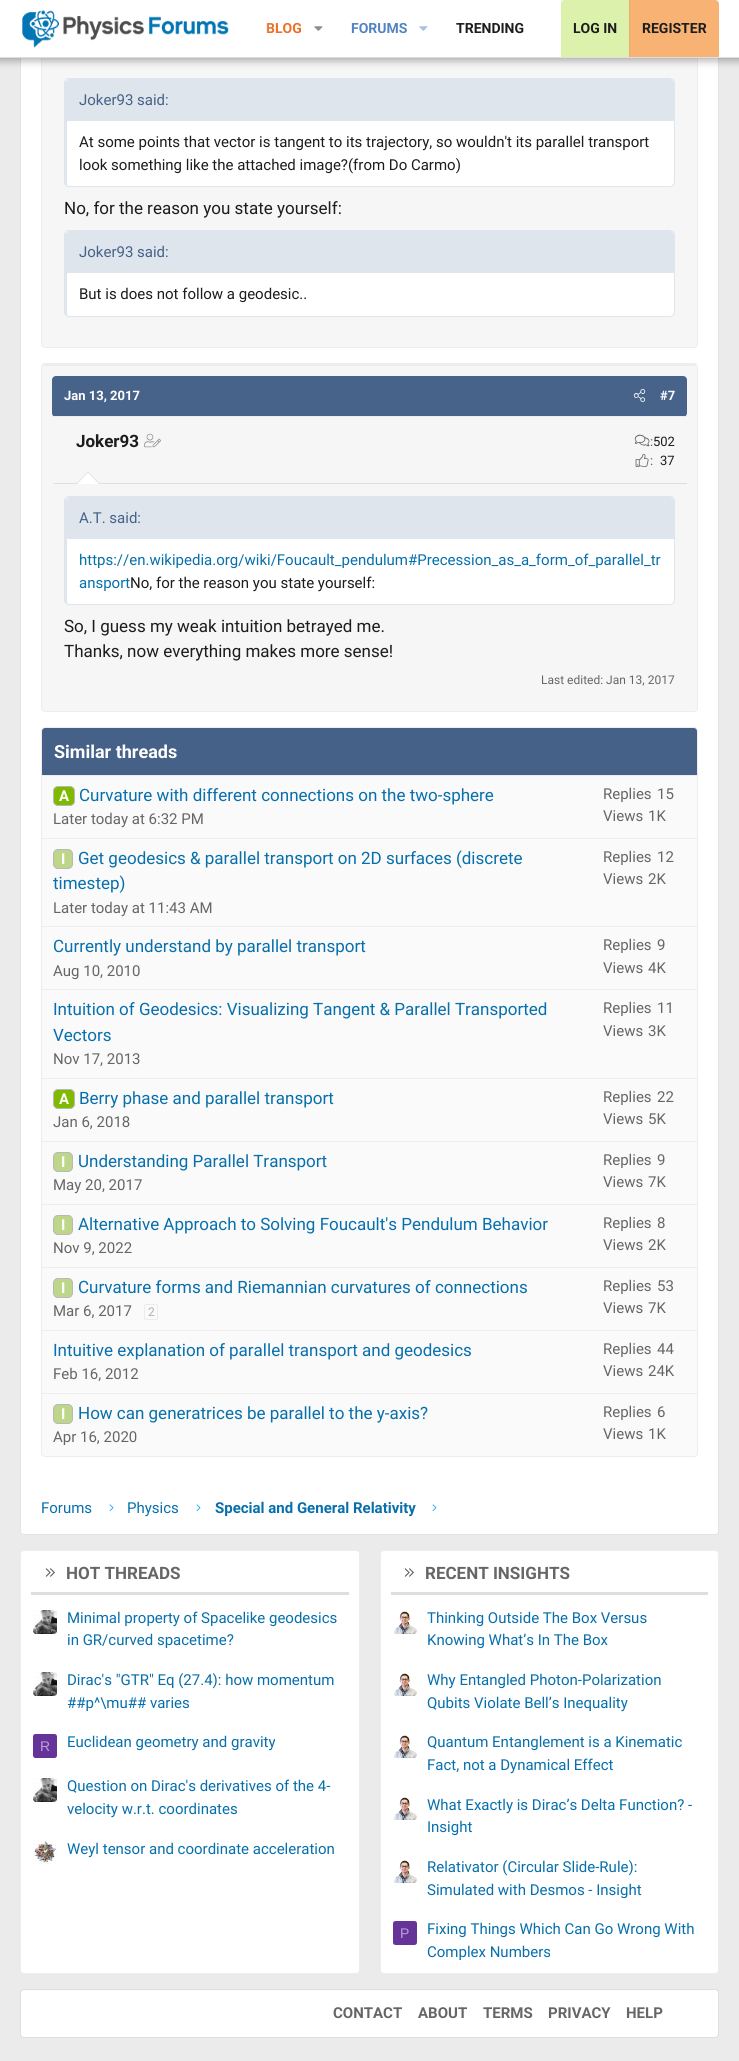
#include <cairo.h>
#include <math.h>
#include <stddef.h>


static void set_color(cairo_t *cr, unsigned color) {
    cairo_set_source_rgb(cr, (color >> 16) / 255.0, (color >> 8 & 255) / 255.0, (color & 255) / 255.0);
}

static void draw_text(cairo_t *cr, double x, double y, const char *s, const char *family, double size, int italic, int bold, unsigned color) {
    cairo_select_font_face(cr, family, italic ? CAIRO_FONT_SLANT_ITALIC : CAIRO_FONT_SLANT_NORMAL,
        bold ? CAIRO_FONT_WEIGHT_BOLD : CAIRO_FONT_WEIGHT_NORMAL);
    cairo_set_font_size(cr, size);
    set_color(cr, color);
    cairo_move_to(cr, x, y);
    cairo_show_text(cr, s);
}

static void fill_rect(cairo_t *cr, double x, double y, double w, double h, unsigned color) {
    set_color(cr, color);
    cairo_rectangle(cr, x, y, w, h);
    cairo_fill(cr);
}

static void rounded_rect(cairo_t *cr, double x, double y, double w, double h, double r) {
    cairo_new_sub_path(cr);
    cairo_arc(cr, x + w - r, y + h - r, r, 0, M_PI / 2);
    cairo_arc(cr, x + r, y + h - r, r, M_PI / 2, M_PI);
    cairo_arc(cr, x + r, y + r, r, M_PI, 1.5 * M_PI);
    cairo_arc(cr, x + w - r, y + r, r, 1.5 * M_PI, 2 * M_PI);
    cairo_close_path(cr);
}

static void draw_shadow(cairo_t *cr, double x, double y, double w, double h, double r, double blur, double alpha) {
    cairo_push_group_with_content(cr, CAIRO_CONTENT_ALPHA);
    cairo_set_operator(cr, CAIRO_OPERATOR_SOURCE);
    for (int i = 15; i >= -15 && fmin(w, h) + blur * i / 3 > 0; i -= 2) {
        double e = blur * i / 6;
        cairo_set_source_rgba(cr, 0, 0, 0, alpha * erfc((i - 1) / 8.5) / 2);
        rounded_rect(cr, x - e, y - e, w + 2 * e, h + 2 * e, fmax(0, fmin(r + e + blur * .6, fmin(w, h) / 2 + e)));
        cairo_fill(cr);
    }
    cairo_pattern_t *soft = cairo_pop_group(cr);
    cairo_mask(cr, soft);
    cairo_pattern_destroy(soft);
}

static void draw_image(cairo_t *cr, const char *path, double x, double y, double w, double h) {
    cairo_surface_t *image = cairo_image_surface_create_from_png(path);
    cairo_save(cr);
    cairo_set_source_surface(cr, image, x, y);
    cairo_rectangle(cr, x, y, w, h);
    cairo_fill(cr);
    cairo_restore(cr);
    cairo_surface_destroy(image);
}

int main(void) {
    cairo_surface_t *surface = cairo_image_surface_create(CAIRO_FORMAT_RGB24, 739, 2061);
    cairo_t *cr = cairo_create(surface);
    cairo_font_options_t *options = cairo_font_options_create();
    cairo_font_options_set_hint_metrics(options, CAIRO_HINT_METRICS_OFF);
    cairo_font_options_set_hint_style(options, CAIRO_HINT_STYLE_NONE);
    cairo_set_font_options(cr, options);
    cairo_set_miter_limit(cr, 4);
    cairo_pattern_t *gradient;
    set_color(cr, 0xEBEBEB);
    cairo_paint(cr);
    set_color(cr, 0xFFFFFF);
    rounded_rect(cr, 20.5, -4.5, 698, 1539, 3.5);
    cairo_fill_preserve(cr);
    set_color(cr, 0xE4E2E2);
    cairo_set_line_width(cr, 1);
    cairo_stroke(cr);
    set_color(cr, 0xF6F6F6);
    cairo_new_path(cr);
    cairo_move_to(cr, 45, -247);
    cairo_line_to(cr, 694, -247);
    cairo_curve_to(cr, 696, -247, 697, -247, 697, -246);
    cairo_line_to(cr, 697, 344);
    cairo_curve_to(cr, 697, 346, 696, 347, 694, 347);
    cairo_line_to(cr, 45, 347);
    cairo_curve_to(cr, 43, 347, 42, 346, 42, 344);
    cairo_line_to(cr, 42, -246);
    cairo_curve_to(cr, 42, -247, 43, -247, 45, -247);
    cairo_close_path(cr);
    cairo_fill(cr);
    rounded_rect(cr, 41.5, -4.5, 656, 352, 3.5);
    set_color(cr, 0xEDEDED);
    cairo_stroke(cr);
    set_color(cr, 0x000000);
    draw_shadow(cr, -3, -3, 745, 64, 0, 4, 0.3);
    fill_rect(cr, 0, 0, 739, 57, 0xFFFFFF);
    fill_rect(cr, 0, 57, 739, 1, 0xDEDEDE);
    draw_image(cr, "assets/img1.png", 22, 10, 207, 38);
    draw_text(cr, 266, 33, "BLOG", "Roboto", 14, 0, 1, 0xEA7027);
    draw_image(cr, "assets/img2.png", 314, 26, 9, 5);
    draw_text(cr, 351, 33, "FORUMS", "Roboto", 14, 0, 1, 0x5384C1);
    draw_image(cr, "assets/img3.png", 419, 26, 9, 5);
    draw_text(cr, 456, 33, "TRENDING", "Roboto", 14, 0, 1, 0x1C1C1C);
    gradient = cairo_pattern_create_linear(229, 29, 269, 29);
    cairo_pattern_add_color_stop_rgba(gradient, 0.66, 1, 1, 1, 1);
    cairo_pattern_add_color_stop_rgba(gradient, 1, 1, 1, 1, 0);
    cairo_set_source(cr, gradient);
    cairo_pattern_destroy(gradient);
    cairo_rectangle(cr, 266, 23, 3, 10);
    cairo_fill(cr);
    fill_rect(cr, 561, 0, 158, 4, 0xF4F4F4);
    set_color(cr, 0xDBF1AC);
    cairo_new_path(cr);
    cairo_move_to(cr, 565, 0);
    cairo_line_to(cr, 629, 0);
    cairo_line_to(cr, 629, 57);
    cairo_line_to(cr, 561, 57);
    cairo_line_to(cr, 561, 4);
    cairo_curve_to(cr, 561, 2, 563, 0, 565, 0);
    cairo_close_path(cr);
    cairo_fill(cr);
    draw_text(cr, 573, 33, "LOG IN", "Roboto", 14, 0, 1, 0x1C1C1C);
    set_color(cr, 0xF8B273);
    cairo_new_path(cr);
    cairo_move_to(cr, 629, 0);
    cairo_line_to(cr, 715, 0);
    cairo_curve_to(cr, 717, 0, 719, 2, 719, 4);
    cairo_line_to(cr, 719, 57);
    cairo_line_to(cr, 629, 57);
    cairo_close_path(cr);
    cairo_fill(cr);
    fill_rect(cr, 629, 0, 1, 57, 0xEDAA6F);
    draw_text(cr, 642, 33, "REGISTER", "Roboto", 14, 0, 1, 0x1C1C1C);
    set_color(cr, 0xFFFFFF);
    cairo_new_path(cr);
    cairo_move_to(cr, 69, 79);
    cairo_line_to(cr, 670, 79);
    cairo_curve_to(cr, 672, 79, 674, 81, 674, 83);
    cairo_line_to(cr, 674, 182);
    cairo_curve_to(cr, 674, 184, 672, 186, 670, 186);
    cairo_line_to(cr, 69, 186);
    cairo_curve_to(cr, 68, 186, 67, 184, 67, 182);
    cairo_line_to(cr, 67, 83);
    cairo_curve_to(cr, 67, 81, 68, 79, 69, 79);
    cairo_close_path(cr);
    cairo_fill(cr);
    rounded_rect(cr, 64.5, 78.5, 610, 108, 4.5);
    set_color(cr, 0xDEE5ED);
    cairo_stroke(cr);
    fill_rect(cr, 65, 81, 2, 104, 0xDEE5ED);
    set_color(cr, 0xDFE5ED);
    cairo_new_path(cr);
    cairo_move_to(cr, 69, 79);
    cairo_curve_to(cr, 68, 79, 67, 81, 67, 83);
    cairo_line_to(cr, 67, 121);
    cairo_line_to(cr, 674, 121);
    cairo_line_to(cr, 674, 83);
    cairo_curve_to(cr, 674, 81, 672, 79, 670, 79);
    cairo_close_path(cr);
    cairo_fill(cr);
    draw_text(cr, 79, 105, "Joker93 said:", "Roboto", 15, 0, 0, 0x456187);
    draw_text(cr, 79, 147, "At some points that vector is tangent to its trajectory, so wouldn't its parallel transport", "Roboto", 15, 0, 0, 0x1C1C1C);
    draw_text(cr, 79, 170, "look something like the attached image?(from Do Carmo)", "Roboto", 15, 0, 0, 0x1C1C1C);
    draw_text(cr, 64, 214, "No, for the reason you state yourself:", "Roboto", 17, 0, 0, 0x1C1C1C);
    set_color(cr, 0xFFFFFF);
    cairo_new_path(cr);
    cairo_move_to(cr, 69, 231);
    cairo_line_to(cr, 670, 231);
    cairo_curve_to(cr, 672, 231, 674, 233, 674, 235);
    cairo_line_to(cr, 674, 312);
    cairo_curve_to(cr, 674, 314, 672, 316, 670, 316);
    cairo_line_to(cr, 69, 316);
    cairo_curve_to(cr, 68, 316, 67, 314, 67, 312);
    cairo_line_to(cr, 67, 235);
    cairo_curve_to(cr, 67, 233, 68, 231, 69, 231);
    cairo_close_path(cr);
    cairo_fill(cr);
    rounded_rect(cr, 64.5, 230.5, 610, 86, 4.5);
    set_color(cr, 0xDEE5ED);
    cairo_stroke(cr);
    fill_rect(cr, 65, 233, 2, 82, 0xDEE5ED);
    set_color(cr, 0xDFE5ED);
    cairo_new_path(cr);
    cairo_move_to(cr, 69, 231);
    cairo_curve_to(cr, 68, 231, 67, 233, 67, 235);
    cairo_line_to(cr, 67, 273);
    cairo_line_to(cr, 674, 273);
    cairo_line_to(cr, 674, 235);
    cairo_curve_to(cr, 674, 233, 672, 231, 670, 231);
    cairo_close_path(cr);
    cairo_fill(cr);
    draw_text(cr, 79, 257, "Joker93 said:", "Roboto", 15, 0, 0, 0x456187);
    draw_text(cr, 79, 299, "But is does not follow a geodesic..", "Roboto", 15, 0, 0, 0x1C1C1C);
    set_color(cr, 0xF6F6F6);
    cairo_new_path(cr);
    cairo_move_to(cr, 45, 366);
    cairo_line_to(cr, 694, 366);
    cairo_curve_to(cr, 696, 366, 697, 366, 697, 367);
    cairo_line_to(cr, 697, 708);
    cairo_curve_to(cr, 697, 710, 696, 711, 694, 711);
    cairo_line_to(cr, 45, 711);
    cairo_curve_to(cr, 43, 711, 42, 710, 42, 708);
    cairo_line_to(cr, 42, 367);
    cairo_curve_to(cr, 42, 366, 43, 366, 45, 366);
    cairo_close_path(cr);
    cairo_fill(cr);
    rounded_rect(cr, 41.5, 363.5, 656, 348, 3.5);
    set_color(cr, 0xEDEDED);
    cairo_stroke(cr);
    fill_rect(cr, 43, 364, 653, 2, 0xEDEDED);
    set_color(cr, 0x47638A);
    rounded_rect(cr, 52, 376, 635, 41, 4);
    cairo_fill(cr);
    fill_rect(cr, 54, 416, 631, 1, 0xEDEDED);
    draw_text(cr, 64, 400, "Jan 13, 2017", "Roboto", 13, 0, 1, 0xFFFFFF);
    draw_image(cr, "assets/img4.png", 633, 389, 13, 13);
    draw_text(cr, 660, 400, "#7", "Roboto", 13, 0, 1, 0xFFFFFF);
    fill_rect(cr, 54, 483, 633, 1, 0xDEDEDE);
    draw_text(cr, 76, 447, "Joker93", "Roboto", 17, 0, 1, 0x1C1C1C);
    draw_image(cr, "assets/img5.png", 144, 433, 17, 15);
    draw_image(cr, "assets/img6.png", 634, 434, 16, 13);
    draw_text(cr, 650, 446, ":", "Roboto", 13, 0, 0, 0x666666);
    draw_text(cr, 653, 446, "502", "Roboto", 13, 0, 0, 0x1C1C1C);
    draw_image(cr, "assets/img7.png", 635, 454, 14, 13);
    draw_text(cr, 650, 465, ":", "Roboto", 13, 0, 0, 0x666666);
    draw_text(cr, 660, 465, "37", "Roboto", 13, 0, 0, 0x1C1C1C);
    set_color(cr, 0xDEDEDE);
    cairo_new_path(cr);
    cairo_move_to(cr, 100, 484);
    cairo_line_to(cr, 76, 484);
    cairo_line_to(cr, 88, 472);
    cairo_close_path(cr);
    cairo_fill(cr);
    set_color(cr, 0xFFFFFF);
    cairo_new_path(cr);
    cairo_move_to(cr, 99, 484);
    cairo_line_to(cr, 77, 484);
    cairo_line_to(cr, 88, 473);
    cairo_close_path(cr);
    cairo_fill(cr);
    cairo_new_path(cr);
    cairo_move_to(cr, 69, 497);
    cairo_line_to(cr, 670, 497);
    cairo_curve_to(cr, 672, 497, 674, 499, 674, 501);
    cairo_line_to(cr, 674, 600);
    cairo_curve_to(cr, 674, 602, 672, 604, 670, 604);
    cairo_line_to(cr, 69, 604);
    cairo_curve_to(cr, 68, 604, 67, 602, 67, 600);
    cairo_line_to(cr, 67, 501);
    cairo_curve_to(cr, 67, 499, 68, 497, 69, 497);
    cairo_close_path(cr);
    cairo_fill(cr);
    rounded_rect(cr, 64.5, 496.5, 610, 108, 4.5);
    set_color(cr, 0xDEE5ED);
    cairo_stroke(cr);
    fill_rect(cr, 65, 499, 2, 104, 0xDEE5ED);
    set_color(cr, 0xDFE5ED);
    cairo_new_path(cr);
    cairo_move_to(cr, 69, 497);
    cairo_curve_to(cr, 68, 497, 67, 499, 67, 501);
    cairo_line_to(cr, 67, 539);
    cairo_line_to(cr, 674, 539);
    cairo_line_to(cr, 674, 501);
    cairo_curve_to(cr, 674, 499, 672, 497, 670, 497);
    cairo_close_path(cr);
    cairo_fill(cr);
    draw_text(cr, 79, 523, "A.T. said:", "Roboto", 15, 0, 0, 0x456187);
    draw_text(cr, 79, 565, "https://en.wikipedia.org/wiki/Foucault_pendulum#Precession_as_a_form_of_parallel_tr", "Roboto", 15, 0, 0, 0x066FAC);
    draw_text(cr, 79, 588, "ansport", "Roboto", 15, 0, 0, 0x066FAC);
    draw_text(cr, 130, 588, "No, for the reason you state yourself:", "Roboto", 15, 0, 0, 0x1C1C1C);
    draw_text(cr, 64, 632, "So, I guess my weak intuition betrayed me.", "Roboto", 17, 0, 0, 0x1C1C1C);
    draw_text(cr, 64, 657, "Thanks, now everything makes more sense!", "Roboto", 17, 0, 0, 0x1C1C1C);
    draw_text(cr, 541, 684, "Last edited: Jan 13, 2017", "Roboto", 12, 0, 0, 0x666666);
    set_color(cr, 0xFAFAFA);
    rounded_rect(cr, 41.5, 727.5, 656, 729, 3.5);
    cairo_fill_preserve(cr);
    set_color(cr, 0xEDEDED);
    cairo_stroke(cr);
    set_color(cr, 0x456187);
    cairo_new_path(cr);
    cairo_move_to(cr, 45, 728);
    cairo_line_to(cr, 694, 728);
    cairo_curve_to(cr, 695.5, 728, 697, 729.5, 697, 731);
    cairo_line_to(cr, 697, 776);
    cairo_line_to(cr, 42, 776);
    cairo_line_to(cr, 42, 731);
    cairo_curve_to(cr, 42, 729.5, 43.5, 728, 45, 728);
    cairo_close_path(cr);
    cairo_fill(cr);
    fill_rect(cr, 42, 775, 655, 1, 0xEDEDED);
    draw_text(cr, 54, 758, "Similar threads", "Roboto", 18, 0, 1, 0xFFFFFF);
    set_color(cr, 0x7FB900);
    rounded_rect(cr, 53.5, 786.5, 21, 19, 4.5);
    cairo_fill_preserve(cr);
    set_color(cr, 0xB8B8B8);
    cairo_stroke(cr);
    draw_text(cr, 59, 801, "A", "Roboto", 15, 0, 1, 0xFFFFFF);
    draw_text(cr, 79, 801, "Curvature with different connections on the two-sphere", "Roboto", 17, 0, 0, 0x066FAC);
    draw_text(cr, 53, 824, "Later today at 6:32 PM", "Roboto", 15, 0, 0, 0x666666);
    draw_text(cr, 603, 799, "Replies", "Roboto", 15, 0, 0, 0x666666);
    draw_text(cr, 657, 799, "15", "Roboto", 15, 0, 0, 0x666666);
    draw_text(cr, 603, 821, "Views", "Roboto", 15, 0, 0, 0x666666);
    draw_text(cr, 648, 821, "1K", "Roboto", 15, 0, 0, 0x666666);
    fill_rect(cr, 42, 838, 655, 1, 0xEDEDED);
    set_color(cr, 0xBDD689);
    rounded_rect(cr, 53.5, 849.5, 19, 19, 4.5);
    cairo_fill_preserve(cr);
    set_color(cr, 0xB8B8B8);
    cairo_stroke(cr);
    draw_text(cr, 61, 864, "I", "Roboto", 15, 0, 1, 0xFFFFFF);
    draw_text(cr, 78, 864, "Get geodesics & parallel transport on 2D surfaces (discrete", "Roboto", 17, 0, 0, 0x066FAC);
    draw_text(cr, 53, 889, "timestep)", "Roboto", 17, 0, 0, 0x066FAC);
    draw_text(cr, 53, 913, "Later today at 11:43 AM", "Roboto", 15, 0, 0, 0x666666);
    draw_text(cr, 603, 862, "Replies", "Roboto", 15, 0, 0, 0x666666);
    draw_text(cr, 657, 862, "12", "Roboto", 15, 0, 0, 0x666666);
    draw_text(cr, 603, 884, "Views", "Roboto", 15, 0, 0, 0x666666);
    draw_text(cr, 648, 884, "2K", "Roboto", 15, 0, 0, 0x666666);
    fill_rect(cr, 42, 926, 655, 1, 0xEDEDED);
    draw_text(cr, 53, 952, "Currently understand by parallel transport", "Roboto", 17, 0, 0, 0x066FAC);
    draw_text(cr, 53, 976, "Aug 10, 2010", "Roboto", 15, 0, 0, 0x666666);
    draw_text(cr, 603, 950, "Replies", "Roboto", 15, 0, 0, 0x666666);
    draw_text(cr, 657, 950, "9", "Roboto", 15, 0, 0, 0x666666);
    draw_text(cr, 603, 973, "Views", "Roboto", 15, 0, 0, 0x666666);
    draw_text(cr, 648, 973, "4K", "Roboto", 15, 0, 0, 0x666666);
    fill_rect(cr, 42, 989, 655, 1, 0xEDEDED);
    draw_text(cr, 53, 1015, "Intuition of Geodesics: Visualizing Tangent & Parallel Transported", "Roboto", 17, 0, 0, 0x066FAC);
    draw_text(cr, 53, 1041, "Vectors", "Roboto", 17, 0, 0, 0x066FAC);
    draw_text(cr, 53, 1064, "Nov 17, 2013", "Roboto", 15, 0, 0, 0x666666);
    draw_text(cr, 603, 1013, "Replies", "Roboto", 15, 0, 0, 0x666666);
    draw_text(cr, 657, 1013, "11", "Roboto", 15, 0, 0, 0x666666);
    draw_text(cr, 603, 1036, "Views", "Roboto", 15, 0, 0, 0x666666);
    draw_text(cr, 648, 1036, "3K", "Roboto", 15, 0, 0, 0x666666);
    fill_rect(cr, 42, 1078, 655, 1, 0xEDEDED);
    set_color(cr, 0x7FB900);
    rounded_rect(cr, 53.5, 1089.5, 21, 19, 4.5);
    cairo_fill_preserve(cr);
    set_color(cr, 0xB8B8B8);
    cairo_stroke(cr);
    draw_text(cr, 59, 1104, "A", "Roboto", 15, 0, 1, 0xFFFFFF);
    draw_text(cr, 79, 1104, "Berry phase and parallel transport", "Roboto", 17, 0, 0, 0x066FAC);
    draw_text(cr, 53, 1127, "Jan 6, 2018", "Roboto", 15, 0, 0, 0x666666);
    draw_text(cr, 603, 1102, "Replies", "Roboto", 15, 0, 0, 0x666666);
    draw_text(cr, 657, 1102, "22", "Roboto", 15, 0, 0, 0x666666);
    draw_text(cr, 603, 1124, "Views", "Roboto", 15, 0, 0, 0x666666);
    draw_text(cr, 648, 1124, "5K", "Roboto", 15, 0, 0, 0x666666);
    fill_rect(cr, 42, 1141, 655, 1, 0xEDEDED);
    set_color(cr, 0xBDD689);
    rounded_rect(cr, 53.5, 1152.5, 19, 19, 4.5);
    cairo_fill_preserve(cr);
    set_color(cr, 0xB8B8B8);
    cairo_stroke(cr);
    draw_text(cr, 61, 1167, "I", "Roboto", 15, 0, 1, 0xFFFFFF);
    draw_text(cr, 78, 1167, "Understanding Parallel Transport", "Roboto", 17, 0, 0, 0x066FAC);
    draw_text(cr, 53, 1190, "May 20, 2017", "Roboto", 15, 0, 0, 0x666666);
    draw_text(cr, 603, 1165, "Replies", "Roboto", 15, 0, 0, 0x666666);
    draw_text(cr, 657, 1165, "9", "Roboto", 15, 0, 0, 0x666666);
    draw_text(cr, 603, 1187, "Views", "Roboto", 15, 0, 0, 0x666666);
    draw_text(cr, 648, 1187, "7K", "Roboto", 15, 0, 0, 0x666666);
    fill_rect(cr, 42, 1204, 655, 1, 0xEDEDED);
    set_color(cr, 0xBDD689);
    rounded_rect(cr, 53.5, 1215.5, 19, 19, 4.5);
    cairo_fill_preserve(cr);
    set_color(cr, 0xB8B8B8);
    cairo_stroke(cr);
    draw_text(cr, 61, 1230, "I", "Roboto", 15, 0, 1, 0xFFFFFF);
    draw_text(cr, 78, 1230, "Alternative Approach to Solving Foucault's Pendulum Behavior", "Roboto", 17, 0, 0, 0x066FAC);
    draw_text(cr, 53, 1253, "Nov 9, 2022", "Roboto", 15, 0, 0, 0x666666);
    draw_text(cr, 603, 1228, "Replies", "Roboto", 15, 0, 0, 0x666666);
    draw_text(cr, 657, 1228, "8", "Roboto", 15, 0, 0, 0x666666);
    draw_text(cr, 603, 1250, "Views", "Roboto", 15, 0, 0, 0x666666);
    draw_text(cr, 648, 1250, "2K", "Roboto", 15, 0, 0, 0x666666);
    fill_rect(cr, 42, 1267, 655, 1, 0xEDEDED);
    set_color(cr, 0xBDD689);
    rounded_rect(cr, 53.5, 1278.5, 19, 19, 4.5);
    cairo_fill_preserve(cr);
    set_color(cr, 0xB8B8B8);
    cairo_stroke(cr);
    draw_text(cr, 61, 1293, "I", "Roboto", 15, 0, 1, 0xFFFFFF);
    draw_text(cr, 78, 1293, "Curvature forms and Riemannian curvatures of connections", "Roboto", 17, 0, 0, 0x066FAC);
    draw_text(cr, 53, 1316, "Mar 6, 2017", "Roboto", 15, 0, 0, 0x666666);
    rounded_rect(cr, 144.5, 1304.5, 13, 15, 1.5);
    set_color(cr, 0xECECEC);
    cairo_stroke(cr);
    draw_text(cr, 148, 1316, "2", "Roboto", 12, 0, 0, 0xB0B0B0);
    draw_text(cr, 603, 1291, "Replies", "Roboto", 15, 0, 0, 0x666666);
    draw_text(cr, 657, 1291, "53", "Roboto", 15, 0, 0, 0x666666);
    draw_text(cr, 603, 1313, "Views", "Roboto", 15, 0, 0, 0x666666);
    draw_text(cr, 648, 1313, "7K", "Roboto", 15, 0, 0, 0x666666);
    fill_rect(cr, 42, 1330, 655, 1, 0xEDEDED);
    draw_text(cr, 53, 1356, "Intuitive explanation of parallel transport and geodesics", "Roboto", 17, 0, 0, 0x066FAC);
    draw_text(cr, 53, 1379, "Feb 16, 2012", "Roboto", 15, 0, 0, 0x666666);
    draw_text(cr, 603, 1354, "Replies", "Roboto", 15, 0, 0, 0x666666);
    draw_text(cr, 657, 1354, "44", "Roboto", 15, 0, 0, 0x666666);
    draw_text(cr, 603, 1376, "Views", "Roboto", 15, 0, 0, 0x666666);
    draw_text(cr, 648, 1376, "24K", "Roboto", 15, 0, 0, 0x666666);
    fill_rect(cr, 42, 1393, 655, 1, 0xEDEDED);
    set_color(cr, 0xBDD689);
    rounded_rect(cr, 53.5, 1404.5, 19, 19, 4.5);
    cairo_fill_preserve(cr);
    set_color(cr, 0xB8B8B8);
    cairo_stroke(cr);
    draw_text(cr, 61, 1419, "I", "Roboto", 15, 0, 1, 0xFFFFFF);
    draw_text(cr, 78, 1419, "How can generatrices be parallel to the y-axis?", "Roboto", 17, 0, 0, 0x066FAC);
    draw_text(cr, 53, 1442, "Apr 16, 2020", "Roboto", 15, 0, 0, 0x666666);
    draw_text(cr, 603, 1417, "Replies", "Roboto", 15, 0, 0, 0x666666);
    draw_text(cr, 657, 1417, "6", "Roboto", 15, 0, 0, 0x666666);
    draw_text(cr, 603, 1439, "Views", "Roboto", 15, 0, 0, 0x666666);
    draw_text(cr, 648, 1439, "1K", "Roboto", 15, 0, 0, 0x666666);
    draw_text(cr, 41, 1513, "Forums", "Roboto", 15, 0, 0, 0x066FAC);
    draw_image(cr, "assets/img8.png", 109, 1504, 5, 7);
    draw_text(cr, 127, 1513, "Physics", "Roboto", 15, 0, 0, 0x066FAC);
    draw_image(cr, "assets/img8.png", 196, 1504, 5, 7);
    draw_text(cr, 215, 1513, "Special and General Relativity", "Roboto", 15, 0, 1, 0x066FAC);
    draw_image(cr, "assets/img8.png", 432, 1504, 5, 7);
    set_color(cr, 0xFFFFFF);
    rounded_rect(cr, 20.5, 1550.5, 339, 423, 3.5);
    cairo_fill_preserve(cr);
    set_color(cr, 0xEDEDED);
    cairo_stroke(cr);
    fill_rect(cr, 31, 1592, 318, 3, 0xDEDEDE);
    draw_image(cr, "assets/img9.png", 45, 1568, 10, 9);
    draw_text(cr, 66, 1579, "HOT THREADS", "Roboto", 17, 0, 1, 0x666666);
    draw_image(cr, "assets/img10.png", 33, 1610, 24, 24);
    draw_text(cr, 67, 1623, "Minimal property of Spacelike geodesics", "Roboto", 15, 0, 0, 0x066FAC);
    draw_text(cr, 67, 1645, "in GR/curved spacetime?", "Roboto", 15, 0, 0, 0x066FAC);
    draw_image(cr, "assets/img10.png", 33, 1672, 24, 24);
    draw_text(cr, 67, 1685, "Dirac's \"GTR\" Eq (27.4): how momentum", "Roboto", 15, 0, 0, 0x066FAC);
    draw_text(cr, 67, 1708, "##p^\\mu## varies", "Roboto", 15, 0, 0, 0x066FAC);
    set_color(cr, 0x663399);
    rounded_rect(cr, 33, 1734, 24, 24, 2.5);
    cairo_fill(cr);
    draw_text(cr, 40, 1751, "R", "Liberation Sans", 14, 0, 0, 0xBF9FDF);
    draw_text(cr, 67, 1747, "Euclidean geometry and gravity", "Roboto", 15, 0, 0, 0x066FAC);
    draw_image(cr, "assets/img10.png", 33, 1778, 24, 24);
    draw_text(cr, 67, 1791, "Question on Dirac's derivatives of the 4-", "Roboto", 15, 0, 0, 0x066FAC);
    draw_text(cr, 67, 1814, "velocity w.r.t. coordinates", "Roboto", 15, 0, 0, 0x066FAC);
    draw_image(cr, "assets/img11.png", 33, 1840, 24, 24);
    draw_text(cr, 67, 1854, "Weyl tensor and coordinate acceleration", "Roboto", 15, 0, 0, 0x066FAC);
    set_color(cr, 0xFFFFFF);
    rounded_rect(cr, 380.5, 1550.5, 338, 423, 3.5);
    cairo_fill_preserve(cr);
    set_color(cr, 0xEDEDED);
    cairo_stroke(cr);
    fill_rect(cr, 391, 1592, 317, 3, 0xDEDEDE);
    draw_image(cr, "assets/img9.png", 404, 1568, 10, 9);
    draw_text(cr, 425, 1579, "RECENT INSIGHTS", "Roboto", 17, 0, 1, 0x666666);
    draw_image(cr, "assets/img12.png", 394, 1611, 23, 23);
    draw_text(cr, 427, 1623, "Thinking Outside The Box Versus", "Roboto", 15, 0, 0, 0x066FAC);
    draw_text(cr, 427, 1645, "Knowing What’s In The Box", "Roboto", 15, 0, 0, 0x066FAC);
    draw_image(cr, "assets/img12.png", 394, 1673, 23, 23);
    draw_text(cr, 427, 1685, "Why Entangled Photon-Polarization", "Roboto", 15, 0, 0, 0x066FAC);
    draw_text(cr, 427, 1708, "Qubits Violate Bell’s Inequality", "Roboto", 15, 0, 0, 0x066FAC);
    draw_image(cr, "assets/img12.png", 394, 1735, 23, 23);
    draw_text(cr, 427, 1747, "Quantum Entanglement is a Kinematic", "Roboto", 15, 0, 0, 0x066FAC);
    draw_text(cr, 427, 1770, "Fact, not a Dynamical Effect", "Roboto", 15, 0, 0, 0x066FAC);
    draw_image(cr, "assets/img12.png", 394, 1797, 23, 23);
    draw_text(cr, 427, 1810, "What Exactly is Dirac’s Delta Function? -", "Roboto", 15, 0, 0, 0x066FAC);
    draw_text(cr, 427, 1832, "Insight", "Roboto", 15, 0, 0, 0x066FAC);
    draw_image(cr, "assets/img12.png", 394, 1860, 23, 23);
    draw_text(cr, 427, 1872, "Relativator (Circular Slide-Rule):", "Roboto", 15, 0, 0, 0x066FAC);
    draw_text(cr, 427, 1895, "Simulated with Desmos - Insight", "Roboto", 15, 0, 0, 0x066FAC);
    set_color(cr, 0x663399);
    rounded_rect(cr, 393, 1921, 24, 24, 2.5);
    cairo_fill(cr);
    draw_text(cr, 400, 1938, "P", "Liberation Sans", 14, 0, 0, 0xBF9FDF);
    draw_text(cr, 427, 1934, "Fixing Things Which Can Go Wrong With", "Roboto", 15, 0, 0, 0x066FAC);
    draw_text(cr, 427, 1957, "Complex Numbers", "Roboto", 15, 0, 0, 0x066FAC);
    set_color(cr, 0xFFFFFF);
    rounded_rect(cr, 20.5, 1989.5, 698, 48, 3.5);
    cairo_fill_preserve(cr);
    set_color(cr, 0xDEDEDE);
    cairo_stroke(cr);
    draw_text(cr, 333, 2018, "CONTACT", "Roboto", 15, 0, 1, 0x666666);
    draw_text(cr, 418, 2018, "ABOUT", "Roboto", 15, 0, 1, 0x666666);
    draw_text(cr, 483, 2018, "TERMS", "Roboto", 15, 0, 1, 0x666666);
    draw_text(cr, 548, 2018, "PRIVACY", "Roboto", 15, 0, 1, 0x666666);
    draw_text(cr, 626, 2018, "HELP", "Roboto", 15, 0, 1, 0x666666);
    cairo_surface_write_to_png(surface, "output.png");
    cairo_font_options_destroy(options);
    cairo_destroy(cr);
    cairo_surface_destroy(surface);
    return 0;
}
